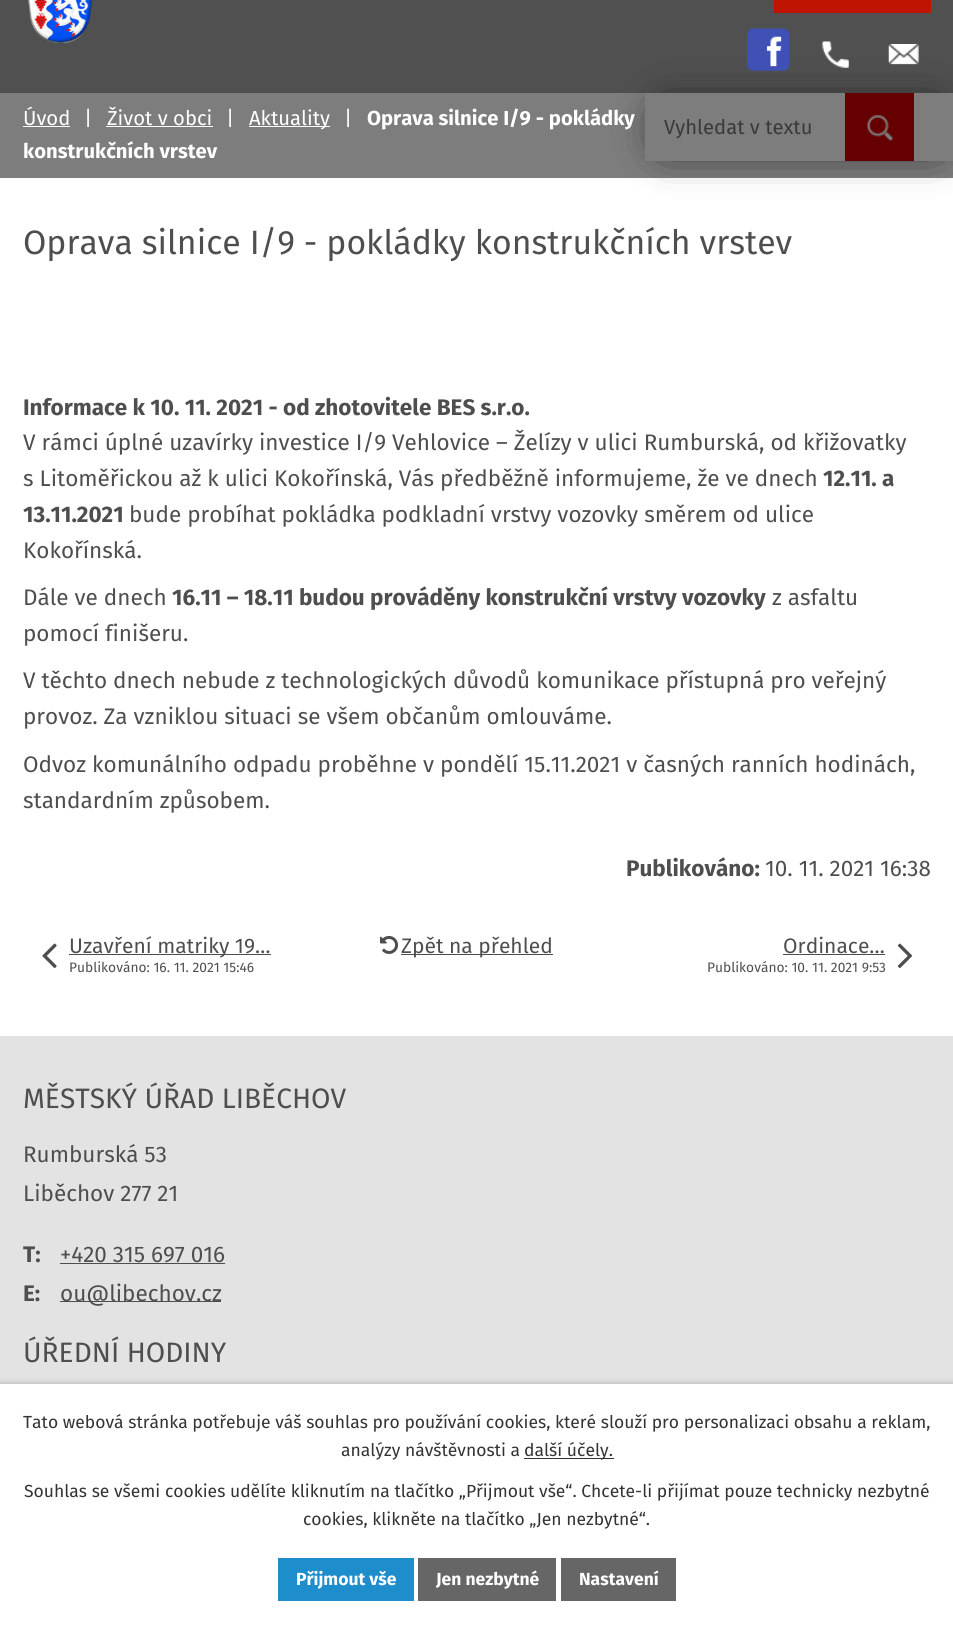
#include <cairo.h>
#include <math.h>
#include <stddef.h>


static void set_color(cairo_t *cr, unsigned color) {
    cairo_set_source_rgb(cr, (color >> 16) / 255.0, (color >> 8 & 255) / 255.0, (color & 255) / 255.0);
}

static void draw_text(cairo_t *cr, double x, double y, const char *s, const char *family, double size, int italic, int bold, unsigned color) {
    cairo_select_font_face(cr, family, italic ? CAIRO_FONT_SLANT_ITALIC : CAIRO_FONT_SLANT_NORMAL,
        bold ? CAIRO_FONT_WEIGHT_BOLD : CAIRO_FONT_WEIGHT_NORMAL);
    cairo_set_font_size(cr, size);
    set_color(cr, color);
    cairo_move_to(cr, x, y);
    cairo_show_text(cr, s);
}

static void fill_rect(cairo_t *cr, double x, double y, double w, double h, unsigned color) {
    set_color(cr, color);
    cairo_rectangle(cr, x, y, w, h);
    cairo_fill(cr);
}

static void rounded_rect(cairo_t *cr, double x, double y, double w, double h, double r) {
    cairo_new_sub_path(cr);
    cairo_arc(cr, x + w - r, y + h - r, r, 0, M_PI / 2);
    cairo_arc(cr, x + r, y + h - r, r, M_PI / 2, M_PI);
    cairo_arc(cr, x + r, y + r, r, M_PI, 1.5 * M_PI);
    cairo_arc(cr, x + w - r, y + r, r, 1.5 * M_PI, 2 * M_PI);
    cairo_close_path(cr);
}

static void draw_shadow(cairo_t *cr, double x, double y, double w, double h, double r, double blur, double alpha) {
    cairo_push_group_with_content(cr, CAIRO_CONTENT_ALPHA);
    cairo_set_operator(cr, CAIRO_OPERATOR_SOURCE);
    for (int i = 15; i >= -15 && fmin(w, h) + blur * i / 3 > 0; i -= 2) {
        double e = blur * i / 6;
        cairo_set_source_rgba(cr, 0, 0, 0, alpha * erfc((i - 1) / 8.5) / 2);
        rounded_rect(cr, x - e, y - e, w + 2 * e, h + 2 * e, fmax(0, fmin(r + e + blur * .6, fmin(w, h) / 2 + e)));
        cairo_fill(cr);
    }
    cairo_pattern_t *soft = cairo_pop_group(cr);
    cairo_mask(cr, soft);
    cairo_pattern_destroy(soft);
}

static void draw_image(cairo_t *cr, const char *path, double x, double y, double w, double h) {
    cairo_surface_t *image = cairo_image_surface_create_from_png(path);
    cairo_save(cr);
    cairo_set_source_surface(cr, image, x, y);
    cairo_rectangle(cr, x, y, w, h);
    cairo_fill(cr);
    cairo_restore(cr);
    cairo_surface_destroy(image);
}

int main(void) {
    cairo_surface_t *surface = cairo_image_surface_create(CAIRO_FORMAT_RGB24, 953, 1625);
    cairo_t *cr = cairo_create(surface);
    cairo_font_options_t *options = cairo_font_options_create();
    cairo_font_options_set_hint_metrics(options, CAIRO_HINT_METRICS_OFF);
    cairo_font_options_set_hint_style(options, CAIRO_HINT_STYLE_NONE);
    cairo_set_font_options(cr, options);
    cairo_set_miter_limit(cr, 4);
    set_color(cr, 0xFFFFFF);
    cairo_paint(cr);
    cairo_save(cr);
    cairo_set_fill_rule(cr, CAIRO_FILL_RULE_EVEN_ODD);
    cairo_new_path(cr);
    cairo_move_to(cr, 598, 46);
    cairo_line_to(cr, 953, 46);
    cairo_line_to(cr, 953, 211);
    cairo_line_to(cr, 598, 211);
    cairo_close_path(cr);
    cairo_move_to(cr, 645, 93);
    cairo_line_to(cr, 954, 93);
    cairo_line_to(cr, 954, 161);
    cairo_line_to(cr, 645, 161);
    cairo_close_path(cr);
    cairo_clip(cr);
    set_color(cr, 0x000000);
    draw_shadow(cr, 665, 113, 271, 31, 0, 22, 1);
    cairo_restore(cr);
    draw_text(cr, 664, 134, "Vyhledat v textu", "Fira Sans", 20.25, 0, 0, 0x757575);
    fill_rect(cr, 845, 93, 69, 68, 0xD00000);
    draw_image(cr, "assets/img5.png", 867, 115, 26, 26);
    cairo_set_source_rgba(cr, 0, 0, 0, 0.51);
    cairo_rectangle(cr, 0, 0, 953, 178);
    cairo_fill(cr);
    cairo_set_source_rgba(cr, 0, 0, 0, 0.36);
    cairo_rectangle(cr, 0, 0, 953, 93);
    cairo_fill(cr);
    fill_rect(cr, 774, 0, 157, 13, 0xBF1400);
    draw_text(cr, 23, 125, "Úvod", "Fira Sans", 20.25, 0, 0, 0xFFFFFF);
    fill_rect(cr, 23, 126, 47, 1, 0xFFFFFF);
    draw_text(cr, 84, 125, "|", "Fira Sans", 20.25, 0, 0, 0xFFFFFF);
    draw_text(cr, 107, 125, "Život v obci", "Fira Sans", 20.25, 0, 0, 0xFFFFFF);
    fill_rect(cr, 106, 126, 107, 1, 0xFFFFFF);
    draw_text(cr, 226, 125, "|", "Fira Sans", 20.25, 0, 0, 0xFFFFFF);
    fill_rect(cr, 249, 126, 81, 1, 0xFFFFFF);
    draw_text(cr, 249, 125, "Aktuality", "Fira Sans", 20.25, 0, 0, 0xFFFFFF);
    draw_text(cr, 344, 125, "|", "Fira Sans", 20.25, 0, 0, 0xFFFFFF);
    draw_text(cr, 367, 125, "Oprava silnice I/9 - pokládky", "Fira Sans", 20.25, 0, 1, 0xFFFFFF);
    draw_text(cr, 23, 158, "konstrukčních vrstev", "Fira Sans", 20.25, 0, 1, 0xFFFFFF);
    draw_image(cr, "assets/img1.png", 28, 0, 65, 43);
    draw_image(cr, "assets/img2.png", 747, 28, 43, 43);
    draw_image(cr, "assets/img3.png", 822, 41, 27, 27);
    draw_image(cr, "assets/img4.png", 888, 44, 31, 21);
    draw_text(cr, 23, 254, "Oprava silnice I/9 - pokládky konstrukčních vrstev", "Fira Sans", 33.75, 0, 0, 0x4E4E4E);
    draw_text(cr, 23, 415, "Informace k 10. 11. 2021 - od zhotovitele BES s.r.o.", "Fira Sans", 22.5, 0, 1, 0x4E4E4E);
    draw_text(cr, 23, 450, "V rámci úplné uzavírky investice I/9 Vehlovice – Želízy v ulici Rumburská, od křižovatky", "Fira Sans", 22.5, 0, 0, 0x4E4E4E);
    draw_text(cr, 23, 486, "s Litoměřickou až k ulici Kokořínská, Vás předběžně informujeme, že ve dnech", "Fira Sans", 22.5, 0, 0, 0x4E4E4E);
    draw_text(cr, 823, 486, "12.11. a", "Fira Sans", 22.5, 0, 1, 0x4E4E4E);
    draw_text(cr, 23, 522, "13.11.2021", "Fira Sans", 22.5, 0, 1, 0x4E4E4E);
    draw_text(cr, 129, 522, "bude probíhat pokládka podkladní vrstvy vozovky směrem od ulice", "Fira Sans", 22.5, 0, 0, 0x4E4E4E);
    draw_text(cr, 23, 558, "Kokořínská.", "Fira Sans", 22.5, 0, 0, 0x4E4E4E);
    draw_text(cr, 23, 605, "Dále ve dnech", "Fira Sans", 22.5, 0, 0, 0x4E4E4E);
    draw_text(cr, 172, 605, "16.11 – 18.11 budou prováděny konstrukční vrstvy vozovky", "Fira Sans", 22.5, 0, 1, 0x4E4E4E);
    draw_text(cr, 772, 605, "z asfaltu", "Fira Sans", 22.5, 0, 0, 0x4E4E4E);
    draw_text(cr, 23, 641, "pomocí finišeru.", "Fira Sans", 22.5, 0, 0, 0x4E4E4E);
    draw_text(cr, 23, 688, "V těchto dnech nebude z technologických důvodů komunikace přístupná pro veřejný", "Fira Sans", 22.5, 0, 0, 0x4E4E4E);
    draw_text(cr, 23, 724, "provoz. Za vzniklou situaci se všem občanům omlouváme.", "Fira Sans", 22.5, 0, 0, 0x4E4E4E);
    draw_text(cr, 23, 772, "Odvoz komunálního odpadu proběhne v pondělí 15.11.2021 v časných ranních hodinách,", "Fira Sans", 22.5, 0, 0, 0x4E4E4E);
    draw_text(cr, 23, 808, "standardním způsobem.", "Fira Sans", 22.5, 0, 0, 0x4E4E4E);
    draw_text(cr, 626, 876, "Publikováno:", "Fira Sans", 22.5, 0, 1, 0x4E4E4E);
    draw_text(cr, 765, 876, "10. 11. 2021 16:38", "Fira Sans", 22.5, 0, 0, 0x4E4E4E);
    draw_image(cr, "assets/img6.png", 42, 943, 15, 26);
    fill_rect(cr, 69, 954, 202, 1, 0x4E4E4E);
    draw_text(cr, 69, 953, "Uzavření matriky 19…", "Fira Sans", 21, 0, 0, 0x4E4E4E);
    draw_text(cr, 69, 972, "Publikováno: 16. 11. 2021 15:46", "Fira Sans", 13.75, 0, 0, 0x4E4E4E);
    draw_image(cr, "assets/img7.png", 380, 935, 19, 19);
    fill_rect(cr, 401, 954, 152, 1, 0x4E4E4E);
    draw_text(cr, 401, 953, "Zpět na přehled", "Fira Sans", 21, 0, 0, 0x4E4E4E);
    draw_text(cr, 783, 953, "Ordinace…", "Fira Sans", 21, 0, 0, 0x4E4E4E);
    fill_rect(cr, 783, 954, 102, 1, 0x4E4E4E);
    draw_text(cr, 707, 972, "Publikováno: 10. 11. 2021 9:53", "Fira Sans", 13.75, 0, 0, 0x4E4E4E);
    draw_image(cr, "assets/img8.png", 897, 943, 16, 26);
    fill_rect(cr, 0, 1036, 953, 347, 0xE3E3E3);
    draw_text(cr, 23, 1108, "MĚSTSKÝ ÚŘAD LIBĚCHOV", "Fira Sans", 28.1, 0, 0, 0x4E4E4E);
    draw_text(cr, 23, 1162, "Rumburská 53", "Fira Sans", 22.5, 0, 0, 0x4E4E4E);
    draw_text(cr, 23, 1201, "Liběchov 277 21", "Fira Sans", 22.5, 0, 0, 0x4E4E4E);
    draw_text(cr, 23, 1262, "T:", "Fira Sans", 22.5, 0, 1, 0x4E4E4E);
    draw_text(cr, 60, 1262, "+420 315 697 016", "Fira Sans", 22.5, 0, 0, 0x4E4E4E);
    fill_rect(cr, 60, 1263, 165, 1, 0x4E4E4E);
    draw_text(cr, 23, 1301, "E:", "Fira Sans", 22.5, 0, 1, 0x4E4E4E);
    fill_rect(cr, 60, 1301, 161, 1, 0x4E4E4E);
    draw_text(cr, 60, 1301, "ou@libechov.cz", "Fira Sans", 22.5, 0, 0, 0x4E4E4E);
    draw_text(cr, 23, 1362, "ÚŘEDNÍ HODINY", "Fira Sans", 28.1, 0, 0, 0x4E4E4E);
    set_color(cr, 0x000000);
    draw_shadow(cr, 0, 1383, 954, 242, 0, 3, 0.2);
    fill_rect(cr, 0, 1384, 953, 241, 0xFFFFFF);
    fill_rect(cr, 0, 1383, 953, 1, 0xCCCCCC);
    draw_text(cr, 23, 1428, "Tato webová stránka potřebuje váš souhlas pro používání cookies, které slouží pro personalizaci obsahu a reklam,", "Fira Sans", 17.5, 0, 0, 0x333333);
    draw_text(cr, 341, 1456, "analýzy návštěvnosti a", "Fira Sans", 17.5, 0, 0, 0x333333);
    fill_rect(cr, 524, 1458, 90, 1, 0x333333);
    draw_text(cr, 524, 1456, "další účely.", "Fira Sans", 17.5, 0, 0, 0x333333);
    draw_text(cr, 24, 1497, "Souhlas se všemi cookies udělíte kliknutím na tlačítko „Přijmout vše“. Chcete-li přijímat pouze technicky nezbytné", "Fira Sans", 17.5, 0, 0, 0x333333);
    draw_text(cr, 303, 1525, "cookies, klikněte na tlačítko „Jen nezbytné“.", "Fira Sans", 17.5, 0, 0, 0x333333);
    fill_rect(cr, 278, 1558, 136, 43, 0x1D8DCC);
    draw_text(cr, 296, 1585, "Přijmout vše", "Fira Sans", 17.5, 0, 1, 0xFFFFFF);
    fill_rect(cr, 418, 1558, 138, 43, 0x666666);
    draw_text(cr, 436, 1585, "Jen nezbytné", "Fira Sans", 17.5, 0, 1, 0xFFFFFF);
    fill_rect(cr, 561, 1558, 115, 43, 0x666666);
    draw_text(cr, 579, 1585, "Nastavení", "Fira Sans", 17.5, 0, 1, 0xFFFFFF);
    cairo_surface_write_to_png(surface, "output.png");
    cairo_font_options_destroy(options);
    cairo_destroy(cr);
    cairo_surface_destroy(surface);
    return 0;
}
